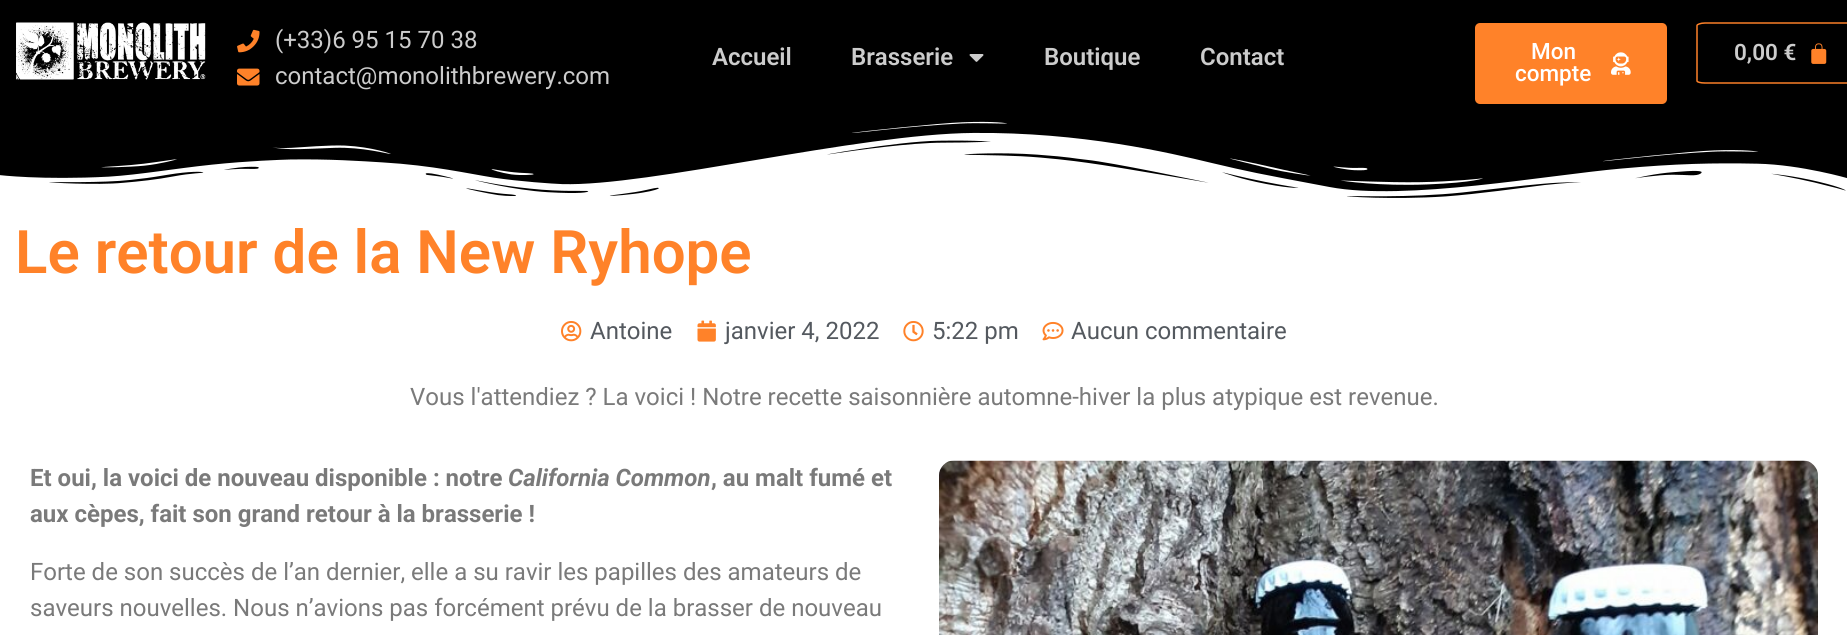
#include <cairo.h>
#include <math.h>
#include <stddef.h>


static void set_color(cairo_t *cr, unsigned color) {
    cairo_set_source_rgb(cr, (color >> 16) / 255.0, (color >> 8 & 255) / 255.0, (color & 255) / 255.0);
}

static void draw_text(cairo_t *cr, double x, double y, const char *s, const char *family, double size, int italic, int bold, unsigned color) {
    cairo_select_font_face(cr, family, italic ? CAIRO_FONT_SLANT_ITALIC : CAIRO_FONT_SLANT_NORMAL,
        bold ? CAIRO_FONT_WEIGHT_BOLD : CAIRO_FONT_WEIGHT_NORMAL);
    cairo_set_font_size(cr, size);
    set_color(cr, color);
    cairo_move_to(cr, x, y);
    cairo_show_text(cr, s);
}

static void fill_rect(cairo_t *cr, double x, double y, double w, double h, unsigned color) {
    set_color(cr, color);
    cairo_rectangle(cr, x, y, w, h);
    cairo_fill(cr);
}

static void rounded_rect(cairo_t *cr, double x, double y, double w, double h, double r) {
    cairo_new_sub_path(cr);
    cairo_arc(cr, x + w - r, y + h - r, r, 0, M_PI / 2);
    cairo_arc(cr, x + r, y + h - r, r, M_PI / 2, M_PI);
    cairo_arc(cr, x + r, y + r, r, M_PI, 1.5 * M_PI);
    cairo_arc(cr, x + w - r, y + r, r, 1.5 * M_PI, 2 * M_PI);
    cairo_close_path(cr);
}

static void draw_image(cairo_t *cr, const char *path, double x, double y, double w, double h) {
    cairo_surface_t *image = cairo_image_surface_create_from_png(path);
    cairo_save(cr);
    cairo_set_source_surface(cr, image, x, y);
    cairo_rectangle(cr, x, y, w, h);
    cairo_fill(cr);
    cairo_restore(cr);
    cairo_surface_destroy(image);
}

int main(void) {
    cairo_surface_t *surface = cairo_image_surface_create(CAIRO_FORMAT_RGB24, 1847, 635);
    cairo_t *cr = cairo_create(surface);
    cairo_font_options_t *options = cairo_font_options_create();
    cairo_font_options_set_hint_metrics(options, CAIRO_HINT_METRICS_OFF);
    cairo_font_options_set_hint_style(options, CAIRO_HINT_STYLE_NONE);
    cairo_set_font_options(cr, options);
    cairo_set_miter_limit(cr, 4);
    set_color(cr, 0xFFFFFF);
    cairo_paint(cr);
    fill_rect(cr, 0, 0, 1847, 198, 0x000000);
    draw_image(cr, "assets/img1.png", 16, 22, 190, 58);
    draw_image(cr, "assets/img2.png", 237, 29, 23, 24);
    draw_text(cr, 275, 48, "(+33)6 95 15 70 38", "Roboto", 24, 0, 0, 0xCCCCCC);
    draw_image(cr, "assets/img3.png", 237, 68, 23, 18);
    draw_text(cr, 275, 84, "contact@monolithbrewery.com", "Roboto", 24, 0, 0, 0xCCCCCC);
    draw_text(cr, 712, 65, "Accueil", "Roboto SemiBold", 24, 0, 0, 0xCCCCCC);
    draw_text(cr, 851, 65, "Brasserie", "Roboto SemiBold", 24, 0, 0, 0xCCCCCC);
    draw_image(cr, "assets/img4.png", 969, 54, 15, 8);
    draw_text(cr, 1044, 65, "Boutique", "Roboto SemiBold", 24, 0, 0, 0xCCCCCC);
    draw_text(cr, 1200, 65, "Contact", "Roboto SemiBold", 24, 0, 0, 0xCCCCCC);
    set_color(cr, 0xFF8229);
    rounded_rect(cr, 1475, 23, 192, 81, 5);
    cairo_fill(cr);
    draw_text(cr, 1531, 59, "Mon", "Roboto Medium", 22.5, 0, 0, 0xFFFFFF);
    draw_text(cr, 1515, 81, "compte", "Roboto Medium", 22.5, 0, 0, 0xFFFFFF);
    draw_image(cr, "assets/img5.png", 1611, 52, 20, 23);
    cairo_new_path(cr);
    cairo_move_to(cr, 1705, 23);
    cairo_line_to(cr, 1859, 23);
    cairo_curve_to(cr, 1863.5, 23, 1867, 24.5, 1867, 25.5);
    cairo_line_to(cr, 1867, 81);
    cairo_curve_to(cr, 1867, 82, 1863.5, 83, 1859, 83);
    cairo_line_to(cr, 1705, 83);
    cairo_curve_to(cr, 1700.5, 83, 1697, 82, 1697, 81);
    cairo_line_to(cr, 1697, 25.5);
    cairo_curve_to(cr, 1697, 24.5, 1700.5, 23, 1705, 23);
    cairo_close_path(cr);
    set_color(cr, 0xFF8229);
    cairo_set_line_width(cr, 1.5);
    cairo_stroke(cr);
    draw_text(cr, 1734, 60, "0,00 €", "Roboto SemiBold", 22.5, 0, 0, 0xCCCCCC);
    draw_image(cr, "assets/img6.png", 1811, 43, 16, 21);
    draw_image(cr, "assets/img7.png", 0, 121, 1847, 88);
    draw_text(cr, 15, 273, "Le retour de la New Ryhope", "Roboto SemiBold", 60, 0, 0, 0xFF8229);
    draw_image(cr, "assets/img8.png", 561, 321, 21, 21);
    draw_text(cr, 590, 339, "Antoine", "Roboto", 24, 0, 0, 0x54595F);
    draw_image(cr, "assets/img9.png", 697, 320, 19, 22);
    draw_text(cr, 725, 339, "janvier 4, 2022", "Roboto", 24, 0, 0, 0x54595F);
    draw_image(cr, "assets/img10.png", 903, 321, 21, 21);
    draw_text(cr, 932, 339, "5:22 pm", "Roboto", 24, 0, 0, 0x54595F);
    draw_image(cr, "assets/img11.png", 1042, 321, 22, 20);
    draw_text(cr, 1071, 339, "Aucun commentaire", "Roboto", 24, 0, 0, 0x54595F);
    draw_text(cr, 410, 405, "Vous l'attendiez ? La voici ! Notre recette saisonnière automne-hiver la plus atypique est revenue.", "Roboto", 24, 0, 0, 0x7A7A7A);
    draw_text(cr, 30, 486, "Et oui, la voici de nouveau disponible : notre", "Roboto", 24, 0, 1, 0x7A7A7A);
    draw_text(cr, 508, 486, "California Common", "Roboto", 24, 1, 1, 0x7A7A7A);
    draw_text(cr, 711, 486, ", au malt fumé et", "Roboto", 24, 0, 1, 0x7A7A7A);
    draw_text(cr, 30, 522, "aux cèpes, fait son grand retour à la brasserie !", "Roboto", 24, 0, 1, 0x7A7A7A);
    draw_text(cr, 30, 580, "Forte de son succès de l’an dernier, elle a su ravir les papilles des amateurs de", "Roboto", 24, 0, 0, 0x7A7A7A);
    draw_text(cr, 30, 616, "saveurs nouvelles. Nous n’avions pas forcément prévu de la brasser de nouveau", "Roboto", 24, 0, 0, 0x7A7A7A);
    draw_image(cr, "assets/img12.png", 939, 460, 879, 175);
    cairo_surface_write_to_png(surface, "output.png");
    cairo_font_options_destroy(options);
    cairo_destroy(cr);
    cairo_surface_destroy(surface);
    return 0;
}
